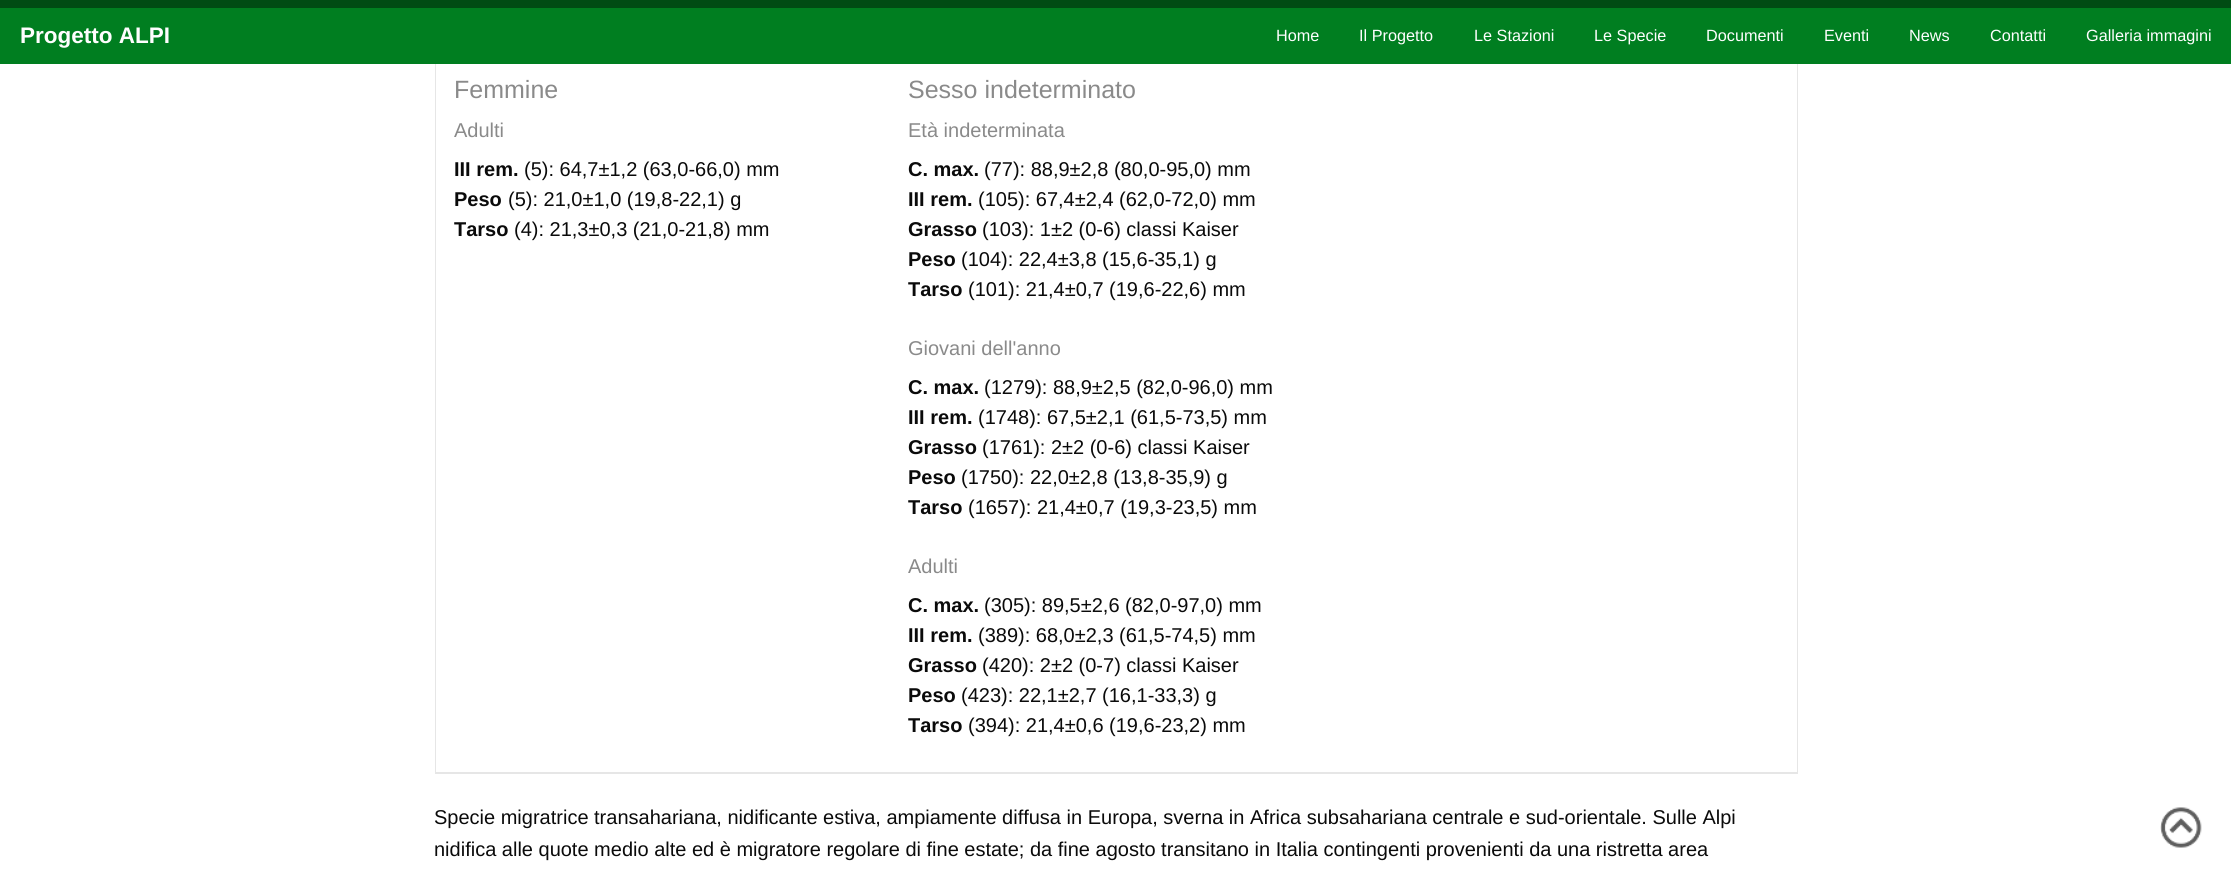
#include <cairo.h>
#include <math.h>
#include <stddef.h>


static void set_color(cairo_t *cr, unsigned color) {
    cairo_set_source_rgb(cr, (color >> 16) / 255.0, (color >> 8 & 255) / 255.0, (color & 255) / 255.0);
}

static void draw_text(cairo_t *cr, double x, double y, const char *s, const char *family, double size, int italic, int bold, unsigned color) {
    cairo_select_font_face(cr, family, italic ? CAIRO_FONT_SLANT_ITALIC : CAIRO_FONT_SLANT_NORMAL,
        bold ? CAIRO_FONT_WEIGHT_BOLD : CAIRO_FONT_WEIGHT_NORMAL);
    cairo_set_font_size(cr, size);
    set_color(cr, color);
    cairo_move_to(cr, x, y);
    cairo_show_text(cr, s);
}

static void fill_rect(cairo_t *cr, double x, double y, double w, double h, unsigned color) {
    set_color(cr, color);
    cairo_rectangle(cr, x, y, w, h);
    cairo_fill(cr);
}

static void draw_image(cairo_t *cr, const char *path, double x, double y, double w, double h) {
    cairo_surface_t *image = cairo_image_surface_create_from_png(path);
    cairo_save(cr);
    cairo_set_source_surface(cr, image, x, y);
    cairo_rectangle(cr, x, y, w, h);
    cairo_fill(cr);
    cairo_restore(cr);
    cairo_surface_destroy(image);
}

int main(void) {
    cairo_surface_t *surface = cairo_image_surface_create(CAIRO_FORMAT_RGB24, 2231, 872);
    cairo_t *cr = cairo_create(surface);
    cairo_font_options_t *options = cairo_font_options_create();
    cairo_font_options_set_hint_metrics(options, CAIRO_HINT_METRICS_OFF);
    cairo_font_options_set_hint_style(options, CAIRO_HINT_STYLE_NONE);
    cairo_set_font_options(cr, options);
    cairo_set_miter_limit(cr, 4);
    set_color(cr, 0xFFFFFF);
    cairo_paint(cr);
    set_color(cr, 0xE6E6E6);
    cairo_new_path(cr);
    cairo_move_to(cr, 435, 772);
    cairo_line_to(cr, 435, 774);
    cairo_line_to(cr, 1798, 774);
    cairo_line_to(cr, 1798, -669);
    cairo_line_to(cr, 1798, 772);
    cairo_close_path(cr);
    cairo_fill(cr);
    cairo_rectangle(cr, 435.5, -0.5, 1362, 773);
    cairo_set_line_width(cr, 1);
    cairo_stroke(cr);
    fill_rect(cr, 0, 0, 2231, 8, 0x004B13);
    fill_rect(cr, 0, 8, 2231, 56, 0x007E20);
    draw_text(cr, 20, 43, "Progetto ALPI", "Liberation Sans", 22.5, 0, 1, 0xFEFEFE);
    draw_text(cr, 1276, 41, "Home", "Liberation Sans", 16.25, 0, 0, 0xFEFEFE);
    draw_text(cr, 1359, 41, "Il Progetto", "Liberation Sans", 16.25, 0, 0, 0xFEFEFE);
    draw_text(cr, 1474, 41, "Le Stazioni", "Liberation Sans", 16.25, 0, 0, 0xFEFEFE);
    draw_text(cr, 1594, 41, "Le Specie", "Liberation Sans", 16.25, 0, 0, 0xFEFEFE);
    draw_text(cr, 1706, 41, "Documenti", "Liberation Sans", 16.25, 0, 0, 0xFEFEFE);
    draw_text(cr, 1824, 41, "Eventi", "Liberation Sans", 16.25, 0, 0, 0xFEFEFE);
    draw_text(cr, 1909, 41, "News", "Liberation Sans", 16.25, 0, 0, 0xFEFEFE);
    draw_text(cr, 1990, 41, "Contatti", "Liberation Sans", 16.25, 0, 0, 0xFEFEFE);
    draw_text(cr, 2086, 41, "Galleria immagini", "Liberation Sans", 16.25, 0, 0, 0xFEFEFE);
    draw_text(cr, 454, 98, "Femmine", "Liberation Sans", 25, 0, 0, 0x8A8A8A);
    draw_text(cr, 454, 137, "Adulti", "Liberation Sans", 20, 0, 0, 0x8A8A8A);
    draw_text(cr, 454, 176, "III rem.", "Liberation Sans", 20, 0, 1, 0x0A0A0A);
    draw_text(cr, 524, 176, "(5): 64,7±1,2 (63,0-66,0) mm", "Liberation Sans", 20, 0, 0, 0x0A0A0A);
    draw_text(cr, 454, 206, "Peso", "Liberation Sans", 20, 0, 1, 0x0A0A0A);
    draw_text(cr, 508, 206, "(5): 21,0±1,0 (19,8-22,1) g", "Liberation Sans", 20, 0, 0, 0x0A0A0A);
    draw_text(cr, 454, 236, "Tarso", "Liberation Sans", 20, 0, 1, 0x0A0A0A);
    draw_text(cr, 514, 236, "(4): 21,3±0,3 (21,0-21,8) mm", "Liberation Sans", 20, 0, 0, 0x0A0A0A);
    draw_text(cr, 908, 98, "Sesso indeterminato", "Liberation Sans", 25, 0, 0, 0x8A8A8A);
    draw_text(cr, 908, 137, "Età indeterminata", "Liberation Sans", 20, 0, 0, 0x8A8A8A);
    draw_text(cr, 908, 176, "C. max.", "Liberation Sans", 20, 0, 1, 0x0A0A0A);
    draw_text(cr, 984, 176, "(77): 88,9±2,8 (80,0-95,0) mm", "Liberation Sans", 20, 0, 0, 0x0A0A0A);
    draw_text(cr, 908, 206, "III rem.", "Liberation Sans", 20, 0, 1, 0x0A0A0A);
    draw_text(cr, 978, 206, "(105): 67,4±2,4 (62,0-72,0) mm", "Liberation Sans", 20, 0, 0, 0x0A0A0A);
    draw_text(cr, 908, 236, "Grasso", "Liberation Sans", 20, 0, 1, 0x0A0A0A);
    draw_text(cr, 982, 236, "(103): 1±2 (0-6) classi Kaiser", "Liberation Sans", 20, 0, 0, 0x0A0A0A);
    draw_text(cr, 908, 266, "Peso", "Liberation Sans", 20, 0, 1, 0x0A0A0A);
    draw_text(cr, 961, 266, "(104): 22,4±3,8 (15,6-35,1) g", "Liberation Sans", 20, 0, 0, 0x0A0A0A);
    draw_text(cr, 908, 296, "Tarso", "Liberation Sans", 20, 0, 1, 0x0A0A0A);
    draw_text(cr, 968, 296, "(101): 21,4±0,7 (19,6-22,6) mm", "Liberation Sans", 20, 0, 0, 0x0A0A0A);
    draw_text(cr, 908, 355, "Giovani dell'anno", "Liberation Sans", 20, 0, 0, 0x8A8A8A);
    draw_text(cr, 908, 394, "C. max.", "Liberation Sans", 20, 0, 1, 0x0A0A0A);
    draw_text(cr, 984, 394, "(1279): 88,9±2,5 (82,0-96,0) mm", "Liberation Sans", 20, 0, 0, 0x0A0A0A);
    draw_text(cr, 908, 424, "III rem.", "Liberation Sans", 20, 0, 1, 0x0A0A0A);
    draw_text(cr, 978, 424, "(1748): 67,5±2,1 (61,5-73,5) mm", "Liberation Sans", 20, 0, 0, 0x0A0A0A);
    draw_text(cr, 908, 454, "Grasso", "Liberation Sans", 20, 0, 1, 0x0A0A0A);
    draw_text(cr, 982, 454, "(1761): 2±2 (0-6) classi Kaiser", "Liberation Sans", 20, 0, 0, 0x0A0A0A);
    draw_text(cr, 908, 484, "Peso", "Liberation Sans", 20, 0, 1, 0x0A0A0A);
    draw_text(cr, 961, 484, "(1750): 22,0±2,8 (13,8-35,9) g", "Liberation Sans", 20, 0, 0, 0x0A0A0A);
    draw_text(cr, 908, 514, "Tarso", "Liberation Sans", 20, 0, 1, 0x0A0A0A);
    draw_text(cr, 968, 514, "(1657): 21,4±0,7 (19,3-23,5) mm", "Liberation Sans", 20, 0, 0, 0x0A0A0A);
    draw_text(cr, 908, 573, "Adulti", "Liberation Sans", 20, 0, 0, 0x8A8A8A);
    draw_text(cr, 908, 612, "C. max.", "Liberation Sans", 20, 0, 1, 0x0A0A0A);
    draw_text(cr, 984, 612, "(305): 89,5±2,6 (82,0-97,0) mm", "Liberation Sans", 20, 0, 0, 0x0A0A0A);
    draw_text(cr, 908, 642, "III rem.", "Liberation Sans", 20, 0, 1, 0x0A0A0A);
    draw_text(cr, 978, 642, "(389): 68,0±2,3 (61,5-74,5) mm", "Liberation Sans", 20, 0, 0, 0x0A0A0A);
    draw_text(cr, 908, 672, "Grasso", "Liberation Sans", 20, 0, 1, 0x0A0A0A);
    draw_text(cr, 982, 672, "(420): 2±2 (0-7) classi Kaiser", "Liberation Sans", 20, 0, 0, 0x0A0A0A);
    draw_text(cr, 908, 702, "Peso", "Liberation Sans", 20, 0, 1, 0x0A0A0A);
    draw_text(cr, 961, 702, "(423): 22,1±2,7 (16,1-33,3) g", "Liberation Sans", 20, 0, 0, 0x0A0A0A);
    draw_text(cr, 908, 732, "Tarso", "Liberation Sans", 20, 0, 1, 0x0A0A0A);
    draw_text(cr, 968, 732, "(394): 21,4±0,6 (19,6-23,2) mm", "Liberation Sans", 20, 0, 0, 0x0A0A0A);
    draw_text(cr, 434, 824, "Specie migratrice transahariana, nidificante estiva, ampiamente diffusa in Europa, sverna in Africa subsahariana centrale e sud-orientale. Sulle Alpi", "Liberation Sans", 20, 0, 0, 0x0A0A0A);
    draw_text(cr, 434, 856, "nidifica alle quote medio alte ed è migratore regolare di fine estate; da fine agosto transitano in Italia contingenti provenienti da una ristretta area", "Liberation Sans", 20, 0, 0, 0x0A0A0A);
    draw_image(cr, "assets/img1.png", 2160, 807, 42, 41);
    cairo_surface_write_to_png(surface, "output.png");
    cairo_font_options_destroy(options);
    cairo_destroy(cr);
    cairo_surface_destroy(surface);
    return 0;
}
